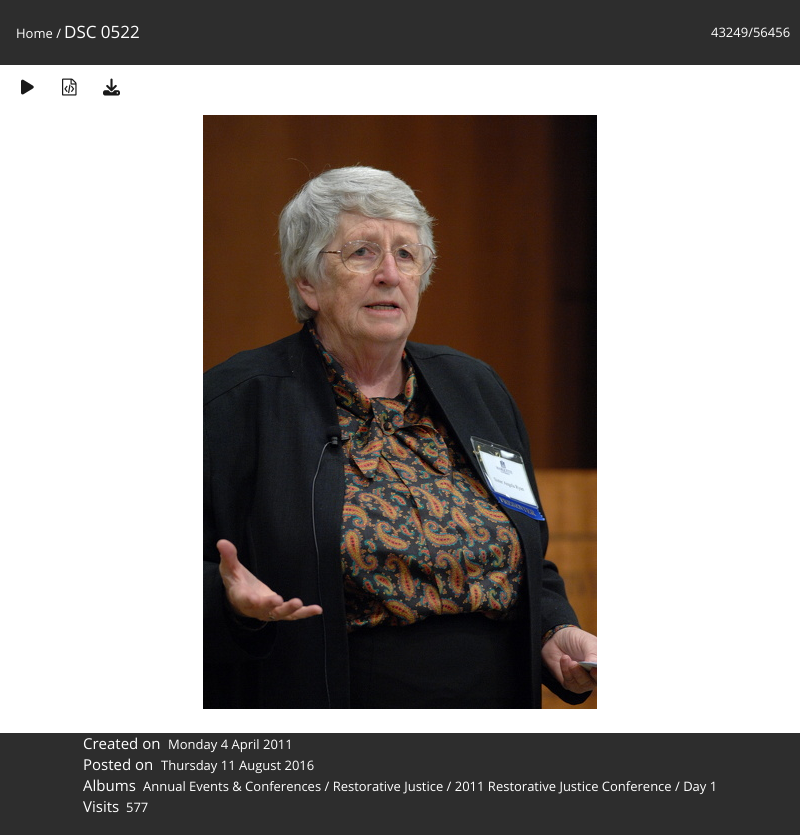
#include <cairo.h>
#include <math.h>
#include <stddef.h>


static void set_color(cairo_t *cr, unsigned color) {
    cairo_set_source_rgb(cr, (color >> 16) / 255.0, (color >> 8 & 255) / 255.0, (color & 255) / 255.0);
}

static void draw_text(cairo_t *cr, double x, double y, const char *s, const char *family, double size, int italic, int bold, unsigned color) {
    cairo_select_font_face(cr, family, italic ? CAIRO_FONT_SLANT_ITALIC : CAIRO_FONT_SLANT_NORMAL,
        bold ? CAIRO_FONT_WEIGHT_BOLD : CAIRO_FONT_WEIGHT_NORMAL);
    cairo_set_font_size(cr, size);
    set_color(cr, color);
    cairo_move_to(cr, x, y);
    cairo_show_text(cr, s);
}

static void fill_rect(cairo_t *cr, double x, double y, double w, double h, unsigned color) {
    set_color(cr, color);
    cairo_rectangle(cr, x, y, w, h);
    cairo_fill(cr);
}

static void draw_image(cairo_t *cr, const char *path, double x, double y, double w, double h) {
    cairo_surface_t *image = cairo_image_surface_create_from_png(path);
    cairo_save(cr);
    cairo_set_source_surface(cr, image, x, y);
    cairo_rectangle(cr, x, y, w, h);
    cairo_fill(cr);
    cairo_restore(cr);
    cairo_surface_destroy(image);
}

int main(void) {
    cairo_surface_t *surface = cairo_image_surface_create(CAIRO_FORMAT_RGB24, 800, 835);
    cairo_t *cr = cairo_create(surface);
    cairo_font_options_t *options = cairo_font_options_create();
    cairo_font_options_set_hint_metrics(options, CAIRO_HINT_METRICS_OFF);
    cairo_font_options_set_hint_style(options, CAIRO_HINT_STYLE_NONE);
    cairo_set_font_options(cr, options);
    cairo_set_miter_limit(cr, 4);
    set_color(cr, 0xFFFFFF);
    cairo_paint(cr);
    fill_rect(cr, 0, 0, 800, 65, 0x2D2D2D);
    draw_text(cr, 16, 38, "Home /", "Open Sans", 13, 0, 0, 0xFFFFFF);
    draw_text(cr, 64, 38, "DSC 0522", "Open Sans", 17, 0, 0, 0xFFFFFF);
    draw_text(cr, 711, 37, "43249/56456", "Open Sans", 13, 0, 0, 0xFFFFFF);
    draw_image(cr, "assets/img1.png", 21, 79, 13, 16);
    draw_image(cr, "assets/img2.png", 62, 78, 15, 18);
    draw_image(cr, "assets/img3.png", 103, 78, 17, 18);
    draw_image(cr, "assets/img4.png", 203, 115, 394, 594);
    fill_rect(cr, 0, 733, 800, 102, 0x2D2D2D);
    draw_text(cr, 83, 749, "Created on", "Open Sans", 15, 0, 0, 0xFFFFFF);
    draw_text(cr, 168, 749, "Monday 4 April 2011", "Open Sans", 13, 0, 0, 0xFFFFFF);
    draw_text(cr, 83, 770, "Posted on", "Open Sans", 15, 0, 0, 0xFFFFFF);
    draw_text(cr, 161, 770, "Thursday 11 August 2016", "Open Sans", 13, 0, 0, 0xFFFFFF);
    draw_text(cr, 83, 791, "Albums", "Open Sans", 15, 0, 0, 0xFFFFFF);
    draw_text(cr, 143, 791, "Annual Events & Conferences / Restorative Justice / 2011 Restorative Justice Conference / Day 1", "Open Sans", 13, 0, 0, 0xFFFFFF);
    draw_text(cr, 83, 812, "Visits", "Open Sans", 15, 0, 0, 0xFFFFFF);
    draw_text(cr, 126, 812, "577", "Open Sans", 13, 0, 0, 0xFFFFFF);
    cairo_surface_write_to_png(surface, "output.png");
    cairo_font_options_destroy(options);
    cairo_destroy(cr);
    cairo_surface_destroy(surface);
    return 0;
}
